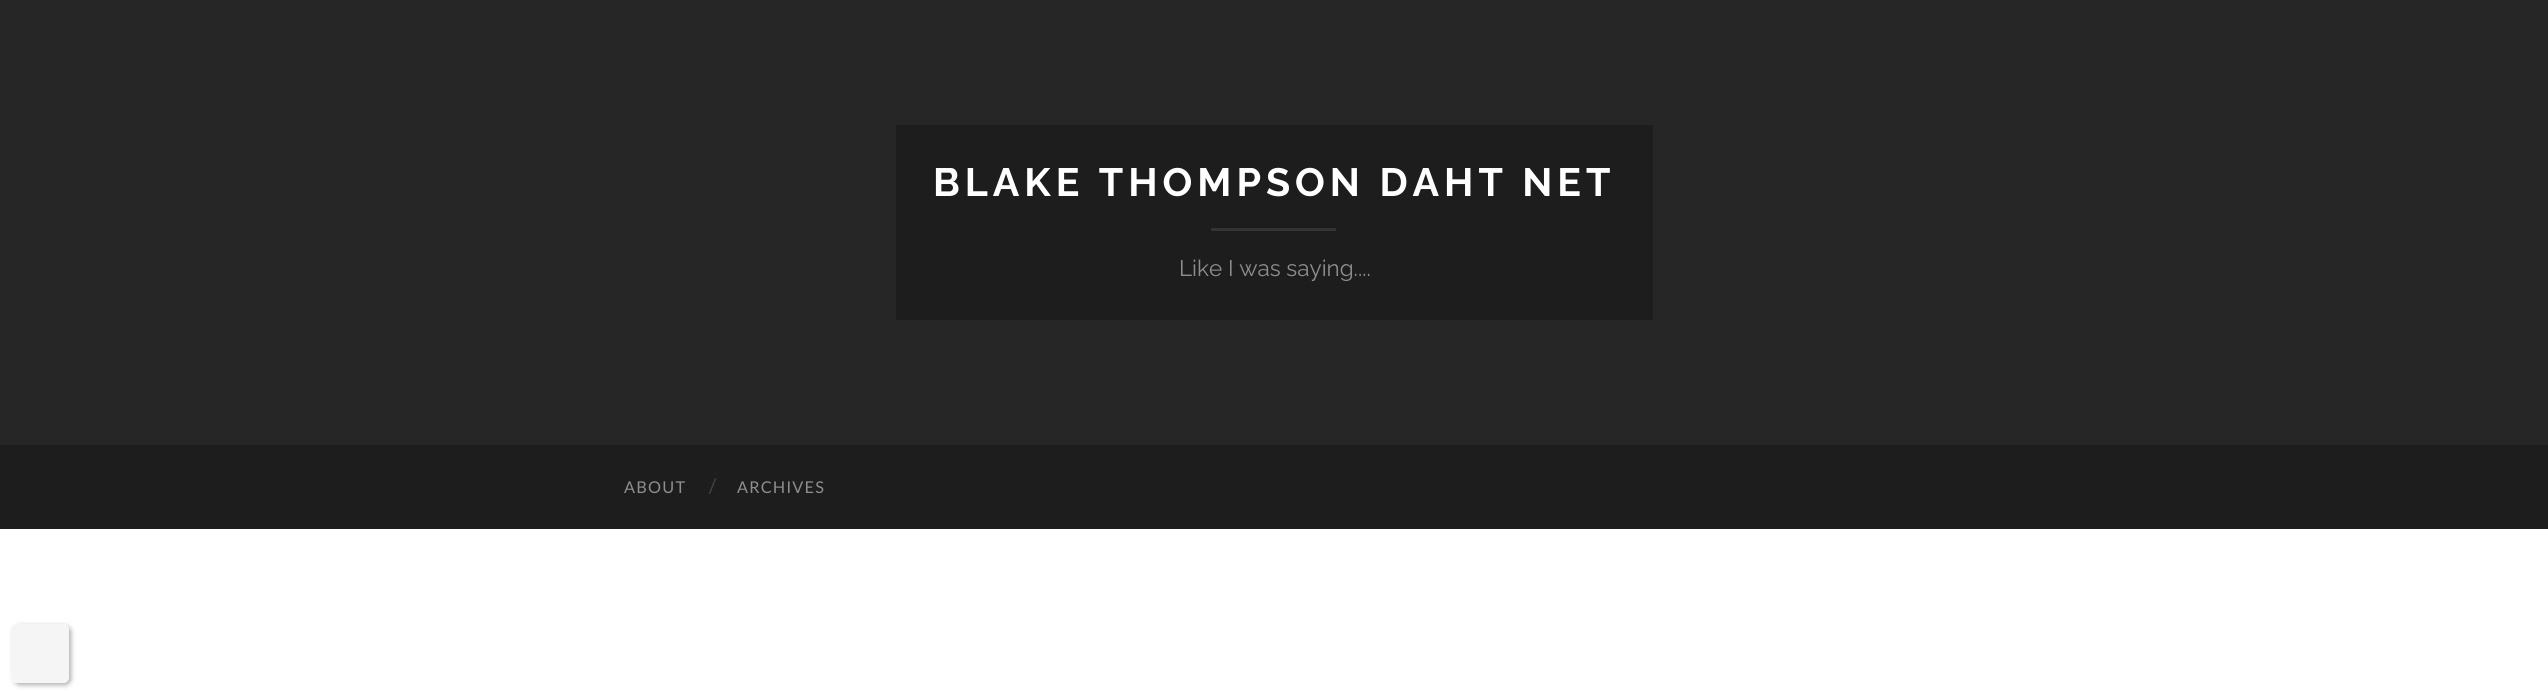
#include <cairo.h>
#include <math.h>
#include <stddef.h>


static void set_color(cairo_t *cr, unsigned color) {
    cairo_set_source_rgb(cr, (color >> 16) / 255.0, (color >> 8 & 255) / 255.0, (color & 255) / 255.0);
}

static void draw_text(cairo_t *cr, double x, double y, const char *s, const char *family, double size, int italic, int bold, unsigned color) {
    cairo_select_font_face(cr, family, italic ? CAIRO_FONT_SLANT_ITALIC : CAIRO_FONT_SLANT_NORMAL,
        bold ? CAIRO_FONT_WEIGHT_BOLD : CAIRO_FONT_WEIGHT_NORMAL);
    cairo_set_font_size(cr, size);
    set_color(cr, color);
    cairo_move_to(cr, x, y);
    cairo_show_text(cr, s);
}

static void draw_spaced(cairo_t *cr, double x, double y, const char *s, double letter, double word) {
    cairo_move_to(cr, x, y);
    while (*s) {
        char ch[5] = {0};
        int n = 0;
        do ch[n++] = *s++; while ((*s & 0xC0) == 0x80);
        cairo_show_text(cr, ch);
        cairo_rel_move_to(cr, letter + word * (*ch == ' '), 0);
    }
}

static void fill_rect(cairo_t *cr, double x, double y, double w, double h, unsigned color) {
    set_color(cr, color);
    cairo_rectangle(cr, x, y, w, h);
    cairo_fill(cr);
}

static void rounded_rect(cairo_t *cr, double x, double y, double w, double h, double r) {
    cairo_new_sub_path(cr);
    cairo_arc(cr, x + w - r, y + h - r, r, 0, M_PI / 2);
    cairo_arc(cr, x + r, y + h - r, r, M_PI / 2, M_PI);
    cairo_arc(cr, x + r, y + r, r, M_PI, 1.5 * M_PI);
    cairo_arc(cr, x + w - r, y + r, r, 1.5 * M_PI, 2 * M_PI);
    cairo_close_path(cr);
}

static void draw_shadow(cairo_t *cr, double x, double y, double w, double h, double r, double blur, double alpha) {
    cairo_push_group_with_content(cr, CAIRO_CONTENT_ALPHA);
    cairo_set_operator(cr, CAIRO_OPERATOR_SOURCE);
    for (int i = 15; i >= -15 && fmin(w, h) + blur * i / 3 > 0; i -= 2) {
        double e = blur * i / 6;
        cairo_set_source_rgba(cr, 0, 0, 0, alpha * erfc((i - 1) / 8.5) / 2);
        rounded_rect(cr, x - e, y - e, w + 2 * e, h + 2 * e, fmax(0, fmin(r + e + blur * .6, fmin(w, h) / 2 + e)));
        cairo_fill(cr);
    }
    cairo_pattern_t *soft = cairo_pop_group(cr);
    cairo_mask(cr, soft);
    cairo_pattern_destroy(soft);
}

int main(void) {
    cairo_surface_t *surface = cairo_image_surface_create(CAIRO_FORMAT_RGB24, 2548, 693);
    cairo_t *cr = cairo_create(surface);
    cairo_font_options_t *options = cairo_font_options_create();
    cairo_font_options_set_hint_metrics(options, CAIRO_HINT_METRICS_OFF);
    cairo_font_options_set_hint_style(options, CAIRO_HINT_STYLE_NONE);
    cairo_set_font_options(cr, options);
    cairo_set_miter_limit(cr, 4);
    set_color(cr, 0xFFFFFF);
    cairo_paint(cr);
    fill_rect(cr, 0, 0, 2548, 445, 0x262626);
    fill_rect(cr, 896, 125, 757, 195, 0x1D1D1D);
    cairo_select_font_face(cr, "Raleway", CAIRO_FONT_SLANT_NORMAL, CAIRO_FONT_WEIGHT_BOLD);
    cairo_set_font_size(cr, 39.4);
    set_color(cr, 0xFFFFFF);
    draw_spaced(cr, 933, 196, "BLAKE THOMPSON DAHT NET", 5, 0);
    fill_rect(cr, 1211, 228, 125, 3, 0x343434);
    draw_text(cr, 1179, 276, "Like I was saying....", "Raleway", 22.5, 0, 0, 0x8E8E8E);
    fill_rect(cr, 0, 445, 2548, 84, 0x1D1D1D);
    cairo_select_font_face(cr, "Lato", CAIRO_FONT_SLANT_NORMAL, CAIRO_FONT_WEIGHT_NORMAL);
    cairo_set_font_size(cr, 16.25);
    set_color(cr, 0x8E8E8E);
    draw_spaced(cr, 624, 493, "ABOUT", 1.25, 0);
    draw_text(cr, 708, 493, "/", "Lato", 20, 0, 0, 0x444444);
    cairo_set_font_size(cr, 16.25);
    set_color(cr, 0x8E8E8E);
    draw_spaced(cr, 737, 493, "ARCHIVES", 1.25, 0);
    cairo_save(cr);
    cairo_set_fill_rule(cr, CAIRO_FILL_RULE_EVEN_ODD);
    cairo_new_path(cr);
    cairo_move_to(cr, 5, 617);
    cairo_line_to(cr, 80, 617);
    cairo_line_to(cr, 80, 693);
    cairo_line_to(cr, 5, 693);
    cairo_close_path(cr);
    cairo_move_to(cr, 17, 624);
    cairo_line_to(cr, 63, 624);
    cairo_curve_to(cr, 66.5, 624, 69, 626.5, 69, 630);
    cairo_line_to(cr, 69, 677);
    cairo_curve_to(cr, 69, 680.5, 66.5, 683, 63, 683);
    cairo_line_to(cr, 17, 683);
    cairo_curve_to(cr, 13.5, 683, 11, 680.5, 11, 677);
    cairo_line_to(cr, 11, 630);
    cairo_curve_to(cr, 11, 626.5, 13.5, 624, 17, 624);
    cairo_close_path(cr);
    cairo_clip(cr);
    set_color(cr, 0x4D4D4D);
    draw_shadow(cr, 14, 626, 57, 59, 6, 2.5, 0.47);
    cairo_restore(cr);
    cairo_set_source_rgba(cr, 0.961, 0.961, 0.961, 0.99);
    rounded_rect(cr, 11, 624, 58, 59, 6);
    cairo_fill(cr);
    cairo_surface_write_to_png(surface, "output.png");
    cairo_font_options_destroy(options);
    cairo_destroy(cr);
    cairo_surface_destroy(surface);
    return 0;
}
